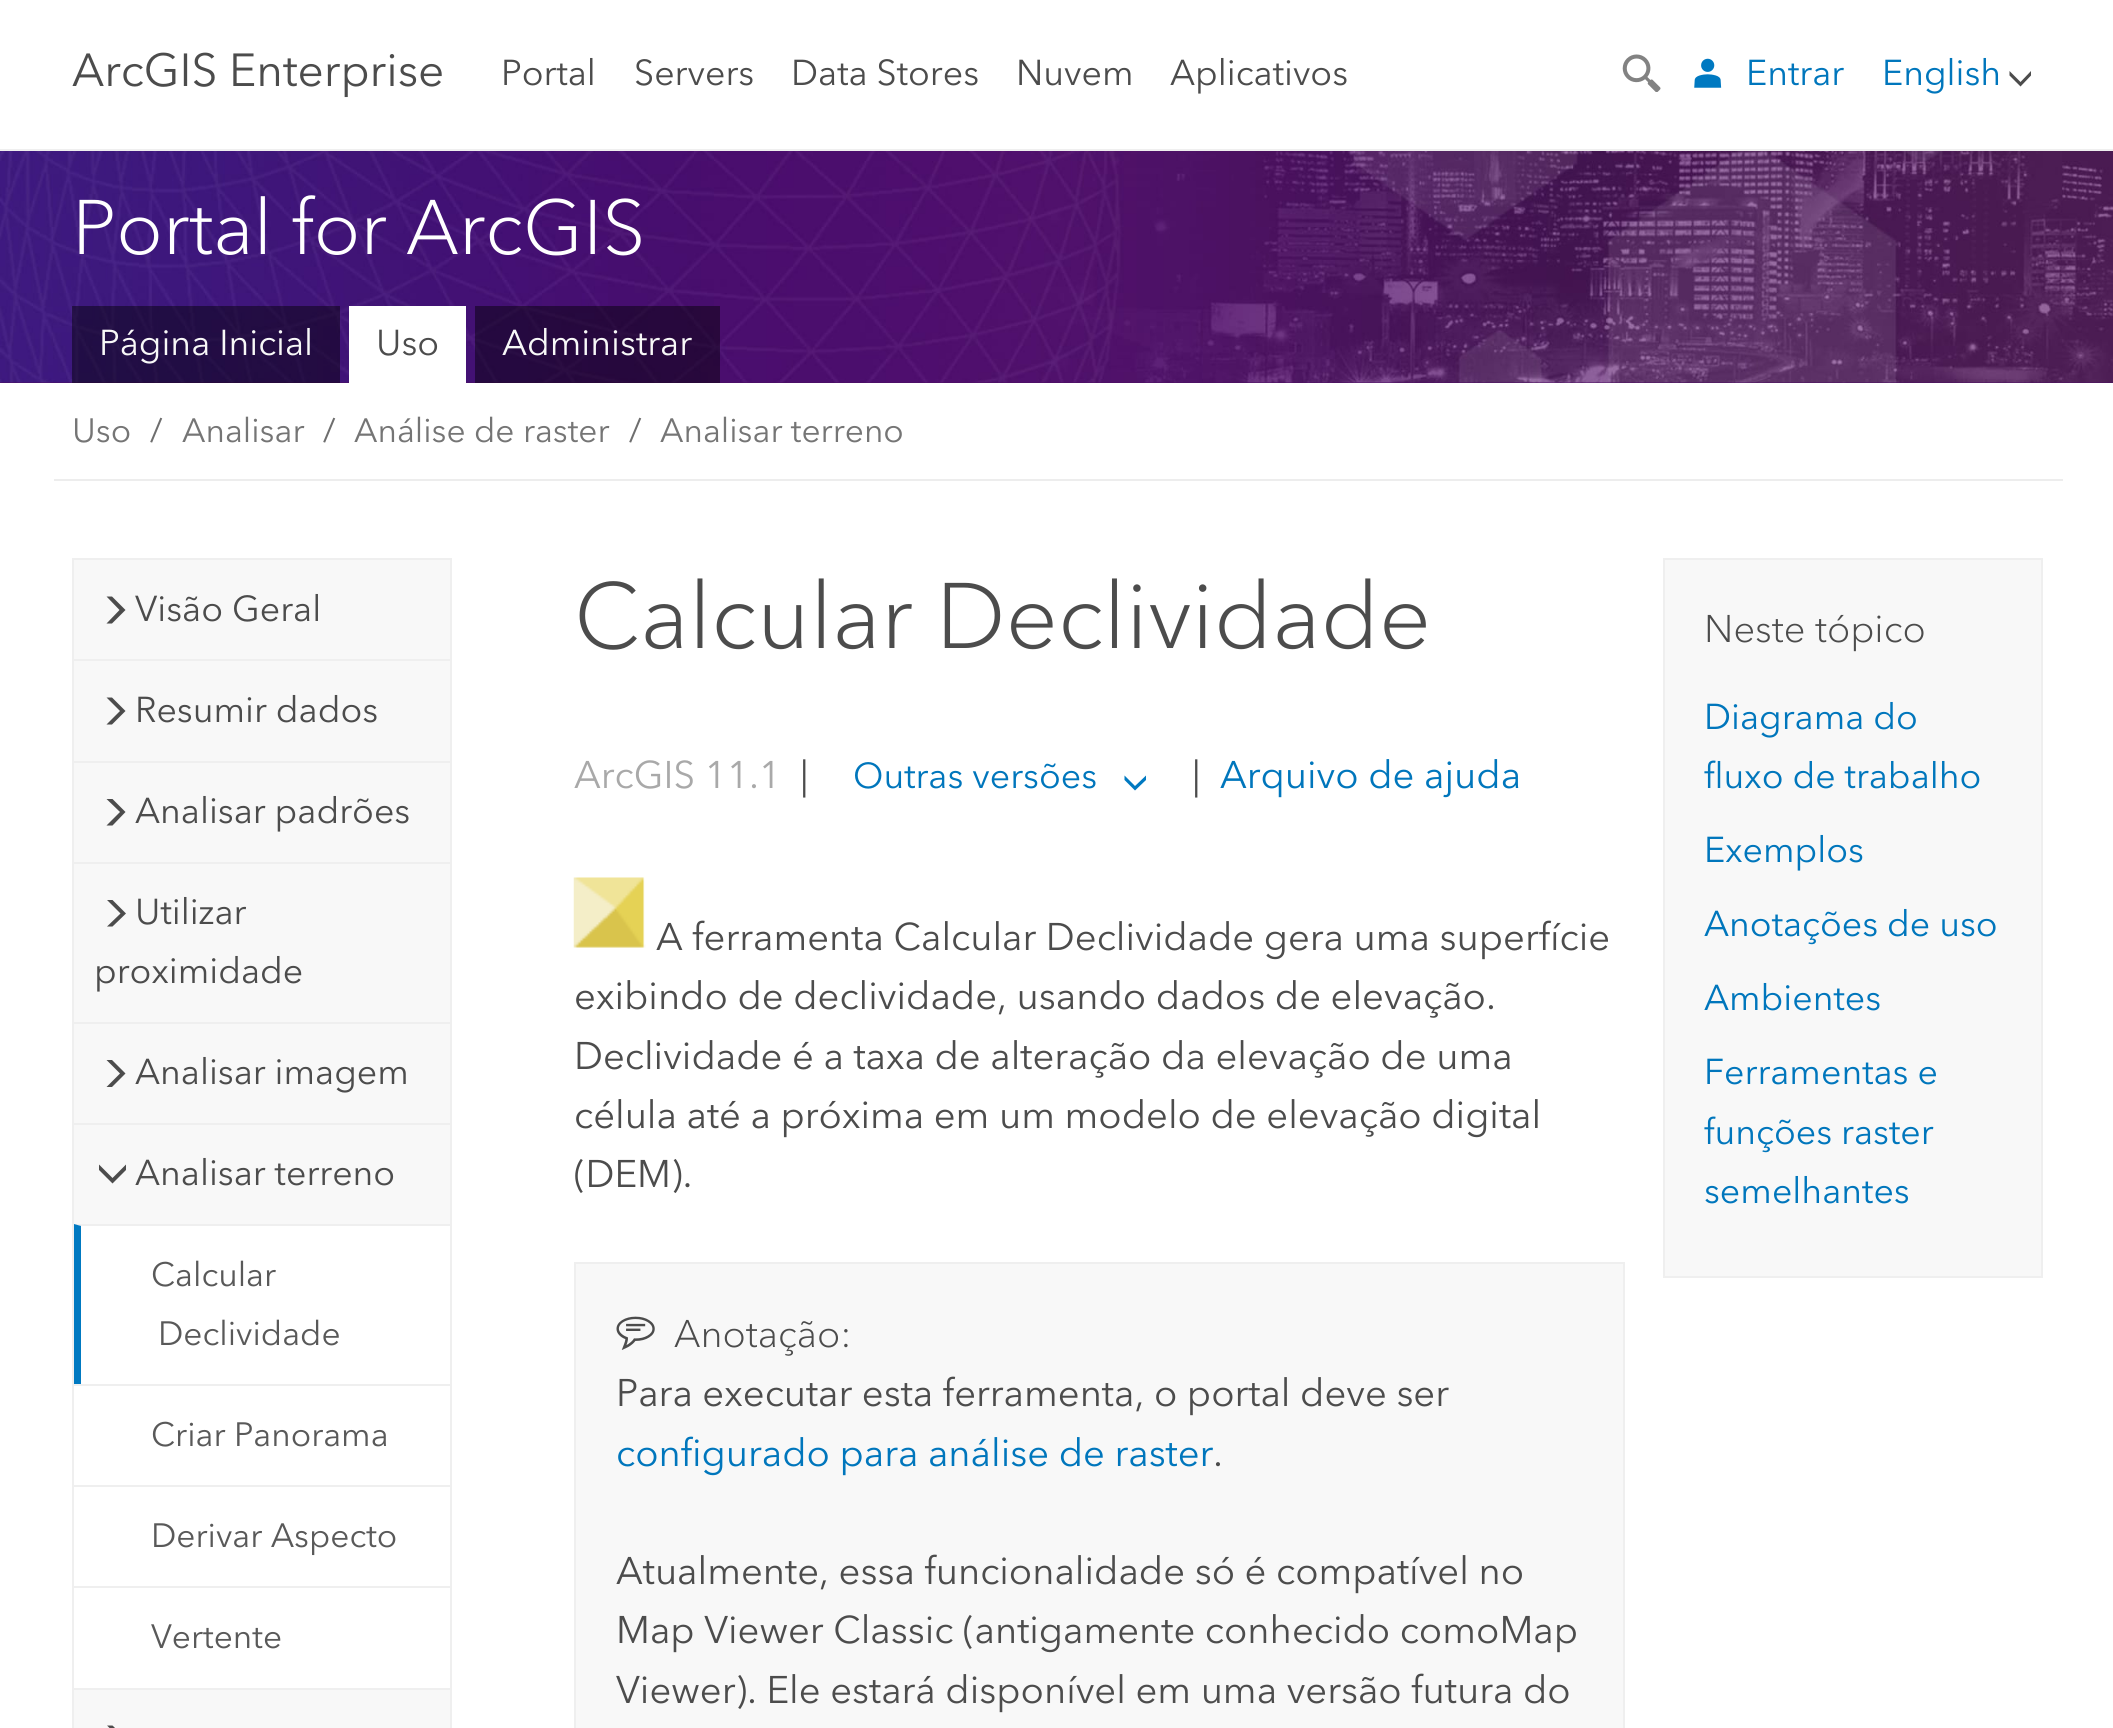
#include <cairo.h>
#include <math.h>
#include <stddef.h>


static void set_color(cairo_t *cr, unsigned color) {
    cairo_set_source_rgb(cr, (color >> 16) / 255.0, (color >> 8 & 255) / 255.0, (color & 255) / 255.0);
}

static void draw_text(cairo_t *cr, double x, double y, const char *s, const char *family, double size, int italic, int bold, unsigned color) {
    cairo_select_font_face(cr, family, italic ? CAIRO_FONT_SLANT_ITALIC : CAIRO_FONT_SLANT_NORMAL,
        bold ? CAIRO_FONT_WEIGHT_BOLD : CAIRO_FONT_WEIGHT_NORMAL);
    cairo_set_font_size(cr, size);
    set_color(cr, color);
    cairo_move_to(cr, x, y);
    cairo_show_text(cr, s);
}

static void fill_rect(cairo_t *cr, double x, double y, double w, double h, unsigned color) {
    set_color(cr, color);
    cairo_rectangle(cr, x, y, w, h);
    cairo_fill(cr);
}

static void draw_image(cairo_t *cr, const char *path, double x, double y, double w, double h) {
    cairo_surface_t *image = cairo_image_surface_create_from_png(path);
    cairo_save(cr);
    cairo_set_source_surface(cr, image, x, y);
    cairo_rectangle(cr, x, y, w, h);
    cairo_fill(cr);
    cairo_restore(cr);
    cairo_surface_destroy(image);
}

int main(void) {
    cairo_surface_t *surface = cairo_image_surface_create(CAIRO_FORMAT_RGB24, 2113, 1728);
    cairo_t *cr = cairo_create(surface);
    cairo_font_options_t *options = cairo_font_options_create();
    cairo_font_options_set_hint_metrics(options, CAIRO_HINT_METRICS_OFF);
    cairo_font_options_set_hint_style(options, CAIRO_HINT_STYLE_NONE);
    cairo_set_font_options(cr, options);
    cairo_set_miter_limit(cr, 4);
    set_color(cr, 0xFFFFFF);
    cairo_paint(cr);
    fill_rect(cr, 0, 149, 2113, 2, 0xEFEFEF);
    draw_text(cr, 72, 86, "ArcGIS Enterprise", "Avenir Next", 46, 0, 0, 0x4C4C4C);
    draw_text(cr, 501, 85, "Portal", "Avenir Next", 35.75, 0, 0, 0x4C4C4C);
    draw_text(cr, 634, 85, "Servers", "Avenir Next", 35.75, 0, 0, 0x4C4C4C);
    draw_text(cr, 791, 85, "Data Stores", "Avenir Next", 35.75, 0, 0, 0x4C4C4C);
    draw_text(cr, 1016, 85, "Nuvem", "Avenir Next", 35.75, 0, 0, 0x4C4C4C);
    draw_text(cr, 1170, 85, "Aplicativos", "Avenir Next", 35.75, 0, 0, 0x4C4C4C);
    draw_image(cr, "assets/img1.png", 1622, 54, 39, 38);
    draw_image(cr, "assets/img2.png", 1694, 58, 28, 30);
    draw_text(cr, 1746, 85, "Entrar", "Avenir Next", 35.75, 0, 0, 0x0076BC);
    draw_text(cr, 1882, 85, "English", "Avenir Next", 35.75, 0, 0, 0x0076BC);
    set_color(cr, 0x4C4C4C);
    cairo_new_path(cr);
    cairo_move_to(cr, 2031, 71);
    cairo_line_to(cr, 2031, 75.5);
    cairo_line_to(cr, 2020.5, 86.5);
    cairo_line_to(cr, 2009.5, 75.5);
    cairo_line_to(cr, 2009.5, 71);
    cairo_line_to(cr, 2020.5, 82);
    cairo_close_path(cr);
    cairo_fill(cr);
    fill_rect(cr, 0, 382, 2113, 1, 0x4C1063);
    draw_image(cr, "assets/img3.png", 0, 151, 2113, 232);
    draw_text(cr, 72, 254, "Portal for ArcGIS", "Avenir Next Light", 76.5, 0, 0, 0xFFFFFF);
    cairo_set_source_rgba(cr, 0, 0, 0, 0.45);
    cairo_rectangle(cr, 72, 306, 268, 77);
    cairo_fill(cr);
    draw_text(cr, 99, 355, "Página Inicial", "Avenir Next", 35.75, 0, 0, 0xF8F8F8);
    fill_rect(cr, 349, 306, 117, 77, 0xFFFFFF);
    draw_text(cr, 376, 355, "Uso", "Avenir Next", 35.75, 0, 0, 0x4C4C4C);
    cairo_set_source_rgba(cr, 0, 0, 0, 0.45);
    cairo_rectangle(cr, 475, 306, 245, 77);
    cairo_fill(cr);
    draw_text(cr, 502, 355, "Administrar", "Avenir Next", 35.75, 0, 0, 0xF8F8F8);
    fill_rect(cr, 54, 479, 2009, 2, 0xEDEDED);
    draw_text(cr, 72, 442, "Uso", "Avenir Next", 33.5, 0, 0, 0x757575);
    draw_text(cr, 150, 442, "/", "Avenir Next", 33.5, 0, 0, 0x6E6E6E);
    draw_text(cr, 182, 442, "Analisar", "Avenir Next", 33.5, 0, 0, 0x757575);
    draw_text(cr, 323, 442, "/", "Avenir Next", 33.5, 0, 0, 0x6E6E6E);
    draw_text(cr, 354, 442, "Análise de raster", "Avenir Next", 33.5, 0, 0, 0x757575);
    draw_text(cr, 629, 442, "/", "Avenir Next", 33.5, 0, 0, 0x6E6E6E);
    draw_text(cr, 660, 442, "Analisar terreno", "Avenir Next", 33.5, 0, 0, 0x757575);
    fill_rect(cr, 450, 558, 2, 1170, 0xEFEFEF);
    fill_rect(cr, 72, 558, 2, 1170, 0xEFEFEF);
    fill_rect(cr, 74, 560, 376, 99, 0xF8F8F8);
    fill_rect(cr, 74, 558, 376, 2, 0xEFEFEF);
    set_color(cr, 0x4C4C4C);
    cairo_new_path(cr);
    cairo_move_to(cr, 106.5, 596.5);
    cairo_line_to(cr, 112, 596.5);
    cairo_line_to(cr, 125.5, 610);
    cairo_line_to(cr, 112, 623.5);
    cairo_line_to(cr, 106.5, 623.5);
    cairo_line_to(cr, 119.5, 610);
    cairo_close_path(cr);
    cairo_fill(cr);
    draw_text(cr, 135, 621, "Visão Geral", "Avenir Next", 35.75, 0, 0, 0x4C4C4C);
    fill_rect(cr, 74, 661, 376, 100, 0xF8F8F8);
    fill_rect(cr, 74, 659, 376, 2, 0xEFEFEF);
    set_color(cr, 0x4C4C4C);
    cairo_new_path(cr);
    cairo_move_to(cr, 106.5, 697.5);
    cairo_line_to(cr, 112, 697.5);
    cairo_line_to(cr, 125.5, 711);
    cairo_line_to(cr, 112, 724.5);
    cairo_line_to(cr, 106.5, 724.5);
    cairo_line_to(cr, 120, 711);
    cairo_close_path(cr);
    cairo_fill(cr);
    draw_text(cr, 135, 722, "Resumir dados", "Avenir Next", 35.75, 0, 0, 0x4C4C4C);
    fill_rect(cr, 74, 763, 376, 99, 0xF8F8F8);
    fill_rect(cr, 74, 761, 376, 2, 0xEFEFEF);
    set_color(cr, 0x4C4C4C);
    cairo_new_path(cr);
    cairo_move_to(cr, 106.5, 799);
    cairo_line_to(cr, 112.5, 799);
    cairo_line_to(cr, 125.5, 812);
    cairo_line_to(cr, 112.5, 825.5);
    cairo_line_to(cr, 106.5, 825.5);
    cairo_line_to(cr, 120, 812);
    cairo_close_path(cr);
    cairo_fill(cr);
    draw_text(cr, 135, 823, "Analisar padrões", "Avenir Next", 35.75, 0, 0, 0x4C4C4C);
    fill_rect(cr, 74, 864, 376, 158, 0xF8F8F8);
    fill_rect(cr, 74, 862, 376, 2, 0xEFEFEF);
    set_color(cr, 0x4C4C4C);
    cairo_new_path(cr);
    cairo_move_to(cr, 107, 900);
    cairo_line_to(cr, 112.5, 900);
    cairo_line_to(cr, 126, 913.5);
    cairo_line_to(cr, 112.5, 926.5);
    cairo_line_to(cr, 107, 926.5);
    cairo_line_to(cr, 120.5, 913.5);
    cairo_close_path(cr);
    cairo_fill(cr);
    draw_text(cr, 135, 924, "Utilizar", "Avenir Next", 35.75, 0, 0, 0x4C4C4C);
    draw_text(cr, 94, 983, "proximidade", "Avenir Next", 35.75, 0, 0, 0x4C4C4C);
    fill_rect(cr, 74, 1024, 376, 99, 0xF8F8F8);
    fill_rect(cr, 74, 1022, 376, 2, 0xEFEFEF);
    set_color(cr, 0x4C4C4C);
    cairo_new_path(cr);
    cairo_move_to(cr, 106.5, 1060);
    cairo_line_to(cr, 112, 1060);
    cairo_line_to(cr, 125.5, 1073.5);
    cairo_line_to(cr, 112, 1087);
    cairo_line_to(cr, 106.5, 1087);
    cairo_line_to(cr, 120, 1073.5);
    cairo_close_path(cr);
    cairo_fill(cr);
    draw_text(cr, 135, 1084, "Analisar imagem", "Avenir Next", 35.75, 0, 0, 0x4C4C4C);
    fill_rect(cr, 74, 1125, 376, 99, 0xF8F8F8);
    fill_rect(cr, 74, 1123, 376, 2, 0xEFEFEF);
    set_color(cr, 0x4C4C4C);
    cairo_new_path(cr);
    cairo_move_to(cr, 126, 1164.5);
    cairo_line_to(cr, 126, 1170);
    cairo_line_to(cr, 112.5, 1183.5);
    cairo_line_to(cr, 99, 1170);
    cairo_line_to(cr, 99, 1164.5);
    cairo_line_to(cr, 112.5, 1178);
    cairo_close_path(cr);
    cairo_fill(cr);
    draw_text(cr, 135, 1185, "Analisar terreno", "Avenir Next", 35.75, 0, 0, 0x4C4C4C);
    set_color(cr, 0xEFEFEF);
    cairo_new_path(cr);
    cairo_move_to(cr, 74, 1224);
    cairo_line_to(cr, 450, 1224);
    cairo_line_to(cr, 450, 1226);
    cairo_line_to(cr, 81, 1226);
    cairo_close_path(cr);
    cairo_fill(cr);
    set_color(cr, 0x0079C1);
    cairo_new_path(cr);
    cairo_move_to(cr, 74, 1384);
    cairo_line_to(cr, 74, 1224);
    cairo_line_to(cr, 81, 1226);
    cairo_line_to(cr, 81, 1384);
    cairo_close_path(cr);
    cairo_fill(cr);
    draw_text(cr, 151, 1286, "Calcular", "Avenir Next", 33.5, 0, 0, 0x595959);
    draw_text(cr, 158, 1345, "Declividade", "Avenir Next", 33.5, 0, 0, 0x595959);
    fill_rect(cr, 74, 1384, 376, 2, 0xEFEFEF);
    draw_text(cr, 151, 1446, "Criar Panorama", "Avenir Next", 33.5, 0, 0, 0x595959);
    fill_rect(cr, 74, 1485, 376, 2, 0xEFEFEF);
    draw_text(cr, 151, 1547, "Derivar Aspecto", "Avenir Next", 33.5, 0, 0, 0x595959);
    fill_rect(cr, 74, 1586, 376, 2, 0xEFEFEF);
    draw_text(cr, 151, 1648, "Vertente", "Avenir Next", 33.5, 0, 0, 0x595959);
    fill_rect(cr, 74, 1690, 376, 38, 0xF8F8F8);
    fill_rect(cr, 74, 1688, 376, 2, 0xEFEFEF);
    set_color(cr, 0x4C4C4C);
    cairo_new_path(cr);
    cairo_move_to(cr, 107, 1725.5);
    cairo_line_to(cr, 112.5, 1725.5);
    cairo_line_to(cr, 126, 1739);
    cairo_line_to(cr, 112.5, 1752.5);
    cairo_line_to(cr, 107, 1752.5);
    cairo_line_to(cr, 120.5, 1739);
    cairo_close_path(cr);
    cairo_fill(cr);
    draw_text(cr, 574, 648, "Calcular Declividade", "Avenir Next Light", 92, 0, 0, 0x4C4C4C);
    draw_text(cr, 574, 788, "ArcGIS 11.1", "Avenir Next", 38.25, 0, 0, 0xA9A9A9);
    draw_text(cr, 800, 788, "|", "Avenir Next", 38.25, 0, 0, 0x4C4C4C);
    draw_text(cr, 853, 788, "Outras versões", "Avenir Next", 35.75, 0, 0, 0x0076BC);
    set_color(cr, 0x0079C1);
    cairo_new_path(cr);
    cairo_move_to(cr, 1146, 775.5);
    cairo_line_to(cr, 1146, 780);
    cairo_line_to(cr, 1135, 790.5);
    cairo_line_to(cr, 1124.5, 780);
    cairo_line_to(cr, 1124.5, 775.5);
    cairo_line_to(cr, 1135, 786);
    cairo_close_path(cr);
    cairo_fill(cr);
    draw_text(cr, 1192, 788, "|", "Avenir Next", 38.25, 0, 0, 0x4C4C4C);
    draw_text(cr, 1220, 788, "Arquivo de ajuda", "Avenir Next", 38.25, 0, 0, 0x0076BC);
    draw_image(cr, "assets/img4.png", 573, 877, 73, 71);
    draw_text(cr, 656, 950, "A ferramenta Calcular Declividade gera uma superfície", "Avenir Next", 38.25, 0, 0, 0x4C4C4C);
    draw_text(cr, 574, 1009, "exibindo de declividade, usando dados de elevação.", "Avenir Next", 38.25, 0, 0, 0x4C4C4C);
    draw_text(cr, 574, 1069, "Declividade é a taxa de alteração da elevação de uma", "Avenir Next", 38.25, 0, 0, 0x4C4C4C);
    draw_text(cr, 574, 1128, "célula até a próxima em um modelo de elevação digital", "Avenir Next", 38.25, 0, 0, 0x4C4C4C);
    draw_text(cr, 574, 1187, "(DEM).", "Avenir Next", 38.25, 0, 0, 0x4C4C4C);
    set_color(cr, 0xF8F8F8);
    cairo_rectangle(cr, 575, 1263, 1049, 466);
    cairo_fill_preserve(cr);
    set_color(cr, 0xEFEFEF);
    cairo_stroke(cr);
    draw_image(cr, "assets/img5.png", 616, 1316, 39, 34);
    draw_text(cr, 674, 1347, "Anotação:", "Avenir Next Light", 38.25, 0, 0, 0x4C4C4C);
    draw_text(cr, 616, 1406, "Para executar esta ferramenta, o portal deve ser", "Avenir Next", 38.25, 0, 0, 0x4C4C4C);
    draw_text(cr, 616, 1466, "configurado para análise de raster", "Avenir Next", 38.25, 0, 0, 0x0076BC);
    draw_text(cr, 1213, 1466, ".", "Avenir Next", 38.25, 0, 0, 0x4C4C4C);
    draw_text(cr, 616, 1584, "Atualmente, essa funcionalidade só é compatível no", "Avenir Next", 38.25, 0, 0, 0x4C4C4C);
    draw_text(cr, 616, 1643, "Map Viewer Classic (antigamente conhecido comoMap", "Avenir Next", 38.25, 0, 0, 0x4C4C4C);
    draw_text(cr, 616, 1703, "Viewer). Ele estará disponível em uma versão futura do", "Avenir Next", 38.25, 0, 0, 0x4C4C4C);
    set_color(cr, 0xF8F8F8);
    cairo_rectangle(cr, 1664, 559, 378, 718);
    cairo_fill_preserve(cr);
    set_color(cr, 0xEFEFEF);
    cairo_stroke(cr);
    draw_text(cr, 1704, 642, "Neste tópico", "Avenir Next Light", 38.25, 0, 0, 0x4C4C4C);
    draw_text(cr, 1704, 729, "Diagrama do", "Avenir Next", 35.75, 0, 0, 0x0076BC);
    draw_text(cr, 1704, 788, "fluxo de trabalho", "Avenir Next", 35.75, 0, 0, 0x0076BC);
    draw_text(cr, 1704, 862, "Exemplos", "Avenir Next", 35.75, 0, 0, 0x0076BC);
    draw_text(cr, 1704, 936, "Anotações de uso", "Avenir Next", 35.75, 0, 0, 0x0076BC);
    draw_text(cr, 1704, 1010, "Ambientes", "Avenir Next", 35.75, 0, 0, 0x0076BC);
    draw_text(cr, 1704, 1084, "Ferramentas e", "Avenir Next", 35.75, 0, 0, 0x0076BC);
    draw_text(cr, 1704, 1144, "funções raster", "Avenir Next", 35.75, 0, 0, 0x0076BC);
    draw_text(cr, 1704, 1203, "semelhantes", "Avenir Next", 35.75, 0, 0, 0x0076BC);
    cairo_surface_write_to_png(surface, "output.png");
    cairo_font_options_destroy(options);
    cairo_destroy(cr);
    cairo_surface_destroy(surface);
    return 0;
}
